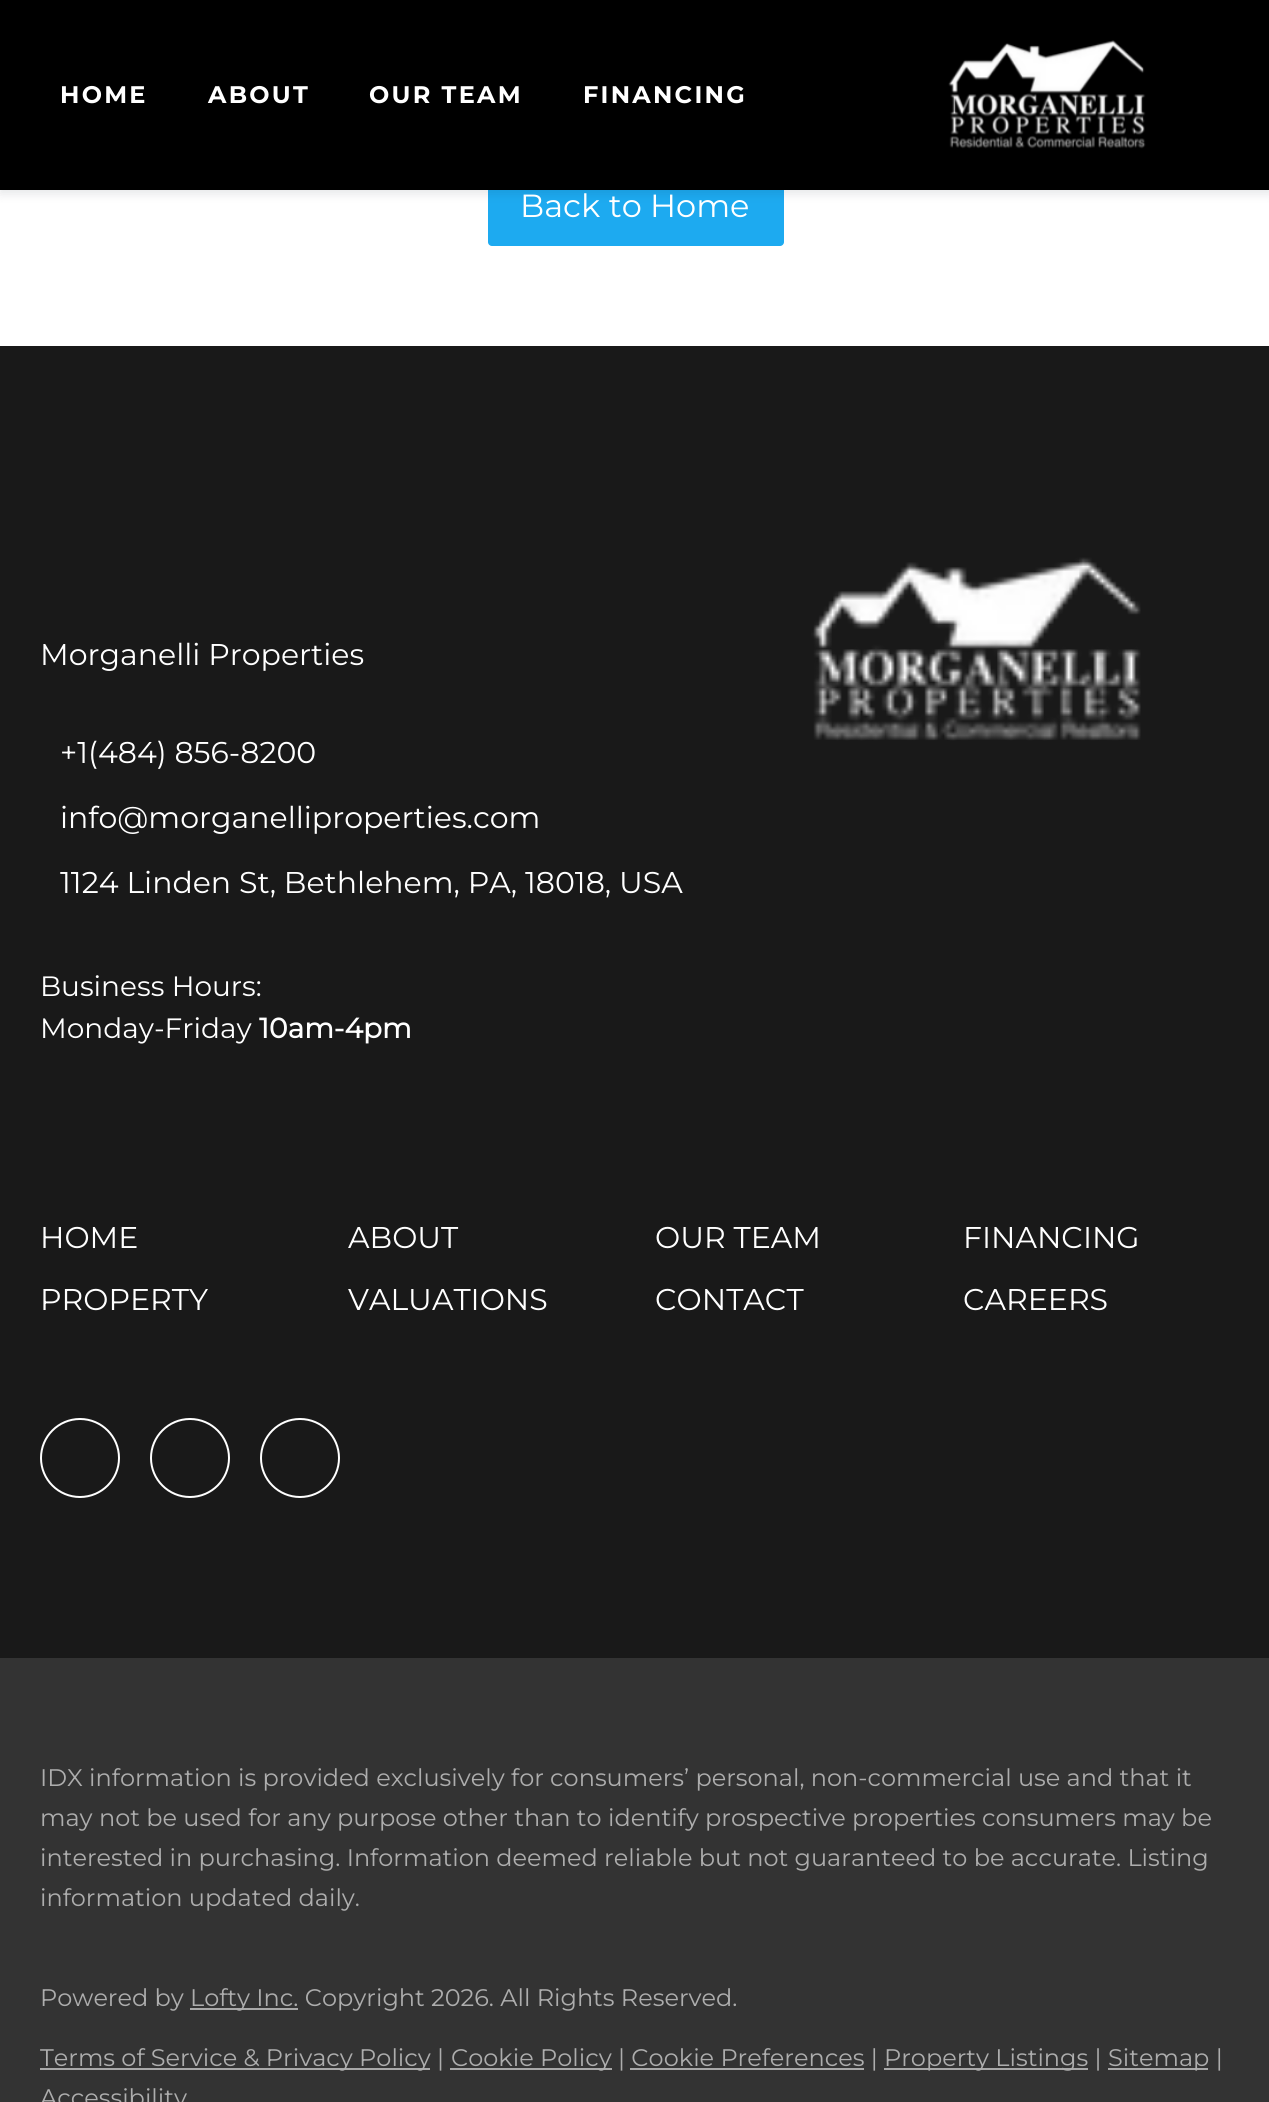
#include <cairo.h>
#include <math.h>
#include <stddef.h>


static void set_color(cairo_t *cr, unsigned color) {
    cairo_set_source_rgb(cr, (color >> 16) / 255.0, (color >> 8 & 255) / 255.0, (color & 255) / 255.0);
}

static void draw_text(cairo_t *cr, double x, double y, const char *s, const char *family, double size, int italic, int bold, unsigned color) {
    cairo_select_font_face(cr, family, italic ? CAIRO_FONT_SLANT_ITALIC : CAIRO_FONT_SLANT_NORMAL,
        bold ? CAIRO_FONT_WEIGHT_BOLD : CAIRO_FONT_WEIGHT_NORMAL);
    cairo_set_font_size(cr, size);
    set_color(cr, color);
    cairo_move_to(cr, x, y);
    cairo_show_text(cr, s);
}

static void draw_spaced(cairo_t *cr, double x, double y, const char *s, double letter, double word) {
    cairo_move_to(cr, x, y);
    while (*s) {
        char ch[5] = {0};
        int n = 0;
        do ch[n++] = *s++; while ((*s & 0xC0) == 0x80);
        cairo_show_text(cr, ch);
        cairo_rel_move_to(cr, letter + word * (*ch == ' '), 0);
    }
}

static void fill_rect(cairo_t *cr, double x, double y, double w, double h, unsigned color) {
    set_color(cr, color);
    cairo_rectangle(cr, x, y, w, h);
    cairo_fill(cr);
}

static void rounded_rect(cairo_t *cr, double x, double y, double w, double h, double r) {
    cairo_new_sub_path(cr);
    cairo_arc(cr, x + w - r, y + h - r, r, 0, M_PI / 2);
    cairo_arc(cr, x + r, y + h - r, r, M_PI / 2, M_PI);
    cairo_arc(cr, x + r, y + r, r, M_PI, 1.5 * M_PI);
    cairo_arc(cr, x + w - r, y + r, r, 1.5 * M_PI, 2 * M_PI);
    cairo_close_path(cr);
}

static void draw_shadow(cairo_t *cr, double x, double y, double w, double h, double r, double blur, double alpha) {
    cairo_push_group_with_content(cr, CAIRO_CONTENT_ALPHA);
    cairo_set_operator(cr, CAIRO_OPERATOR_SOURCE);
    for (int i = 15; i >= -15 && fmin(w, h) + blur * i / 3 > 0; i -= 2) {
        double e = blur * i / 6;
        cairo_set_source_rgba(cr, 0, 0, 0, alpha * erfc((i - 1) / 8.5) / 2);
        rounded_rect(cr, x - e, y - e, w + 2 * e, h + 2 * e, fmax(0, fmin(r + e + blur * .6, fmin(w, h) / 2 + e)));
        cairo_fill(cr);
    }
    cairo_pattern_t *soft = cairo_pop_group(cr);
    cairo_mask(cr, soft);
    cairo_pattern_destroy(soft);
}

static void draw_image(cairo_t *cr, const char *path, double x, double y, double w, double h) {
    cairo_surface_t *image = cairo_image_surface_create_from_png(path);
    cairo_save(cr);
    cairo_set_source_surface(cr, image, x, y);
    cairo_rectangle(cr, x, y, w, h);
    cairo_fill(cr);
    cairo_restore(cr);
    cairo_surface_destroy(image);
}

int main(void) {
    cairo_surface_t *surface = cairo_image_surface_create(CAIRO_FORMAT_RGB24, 1269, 2102);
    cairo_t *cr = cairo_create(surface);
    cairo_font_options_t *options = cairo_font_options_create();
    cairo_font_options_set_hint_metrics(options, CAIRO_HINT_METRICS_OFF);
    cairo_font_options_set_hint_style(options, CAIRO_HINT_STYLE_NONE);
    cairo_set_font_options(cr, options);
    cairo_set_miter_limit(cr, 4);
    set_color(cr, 0xFFFFFF);
    cairo_paint(cr);
    set_color(cr, 0x1DAAF0);
    rounded_rect(cr, 488, 166, 296, 80, 4);
    cairo_fill(cr);
    set_color(cr, 0x000A1E);
    draw_shadow(cr, 0, 4, 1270, 190, 0, 5, 0.1);
    fill_rect(cr, 0, 0, 1269, 190, 0x000000);
    cairo_select_font_face(cr, "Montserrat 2", CAIRO_FONT_SLANT_NORMAL, CAIRO_FONT_WEIGHT_BOLD);
    cairo_set_font_size(cr, 24);
    set_color(cr, 0xFFFFFF);
    draw_spaced(cr, 60, 103, "HOME", 2.25, 0);
    draw_spaced(cr, 208, 103, "ABOUT", 2.25, 0);
    draw_spaced(cr, 369, 103, "OUR TEAM", 2.25, 0);
    draw_spaced(cr, 583, 103, "FINANCING", 2.25, 0);
    draw_image(cr, "assets/img1.png", 948, 40, 198, 109);
    draw_text(cr, 520, 217, "Back to Home", "Montserrat", 32, 0, 0, 0xFFFFFF);
    fill_rect(cr, 0, 346, 1269, 1312, 0x191919);
    draw_text(cr, 40, 665, "Morganelli Properties", "Montserrat", 30, 0, 0, 0xFFFFFF);
    draw_text(cr, 60, 763, "+1(484) 856-8200", "Montserrat", 30, 0, 0, 0xFFFFFF);
    draw_text(cr, 60, 828, "info@morganelliproperties.com", "Montserrat", 30, 0, 0, 0xFFFFFF);
    draw_text(cr, 60, 893, "1124 Linden St, Bethlehem, PA, 18018, USA", "Montserrat", 30, 0, 0, 0xFFFFFF);
    draw_image(cr, "assets/img2.png", 811, 557, 330, 184);
    draw_text(cr, 40, 996, "Business Hours:", "Montserrat", 28, 0, 0, 0xFFFFFF);
    draw_text(cr, 40, 1038, "Monday-Friday", "Montserrat", 28, 0, 0, 0xFFFFFF);
    draw_text(cr, 259, 1038, "10am-4pm", "Montserrat", 28, 0, 1, 0xFFFFFF);
    draw_text(cr, 40, 1248, "HOME", "Montserrat", 30, 0, 0, 0xFFFFFF);
    draw_text(cr, 348, 1248, "ABOUT", "Montserrat", 30, 0, 0, 0xFFFFFF);
    draw_text(cr, 655, 1248, "OUR TEAM", "Montserrat", 30, 0, 0, 0xFFFFFF);
    draw_text(cr, 963, 1248, "FINANCING", "Montserrat", 30, 0, 0, 0xFFFFFF);
    draw_text(cr, 40, 1310, "PROPERTY", "Montserrat", 30, 0, 0, 0xFFFFFF);
    draw_text(cr, 348, 1310, "VALUATIONS", "Montserrat", 30, 0, 0, 0xFFFFFF);
    draw_text(cr, 655, 1310, "CONTACT", "Montserrat", 30, 0, 0, 0xFFFFFF);
    draw_text(cr, 963, 1310, "CAREERS", "Montserrat", 30, 0, 0, 0xFFFFFF);
    cairo_new_path(cr);
    cairo_arc(cr, 80, 1458, 39, 0, 2 * M_PI);
    cairo_stroke(cr);
    cairo_arc(cr, 190, 1458, 39, 0, 2 * M_PI);
    cairo_stroke(cr);
    cairo_arc(cr, 300, 1458, 39, 0, 2 * M_PI);
    cairo_stroke(cr);
    fill_rect(cr, 0, 1658, 1269, 444, 0x333333);
    draw_text(cr, 40, 1786, "IDX information is provided exclusively for consumers’ personal, non-commercial use and that it", "Montserrat", 24, 0, 0, 0xADADAD);
    draw_text(cr, 40, 1826, "may not be used for any purpose other than to identify prospective properties consumers may be", "Montserrat", 24, 0, 0, 0xADADAD);
    draw_text(cr, 40, 1866, "interested in purchasing. Information deemed reliable but not guaranteed to be accurate. Listing", "Montserrat", 24, 0, 0, 0xADADAD);
    draw_text(cr, 40, 1906, "information updated daily.", "Montserrat", 24, 0, 0, 0xADADAD);
    draw_text(cr, 40, 2006, "Powered by", "Montserrat", 24, 0, 0, 0xADADAD);
    fill_rect(cr, 190, 2008, 108, 2, 0xA8A8A8);
    draw_text(cr, 190, 2006, "Lofty Inc. Copyright 2026. All Rights Reserved.", "Montserrat", 24, 0, 0, 0xADADAD);
    fill_rect(cr, 40, 2068, 390, 2, 0xA8A8A8);
    draw_text(cr, 40, 2066, "Terms of Service & Privacy Policy |", "Montserrat", 24, 0, 0, 0xADADAD);
    fill_rect(cr, 450, 2068, 162, 2, 0xA8A8A8);
    draw_text(cr, 451, 2066, "Cookie Policy | Cookie Preferences |", "Montserrat", 24, 0, 0, 0xADADAD);
    fill_rect(cr, 884, 2068, 204, 2, 0xA8A8A8);
    draw_text(cr, 884, 2066, "Property Listings |", "Montserrat", 24, 0, 0, 0xADADAD);
    fill_rect(cr, 1108, 2068, 100, 2, 0xA8A8A8);
    draw_text(cr, 1108, 2066, "Sitemap |", "Montserrat", 24, 0, 0, 0xADADAD);
    fill_rect(cr, 630, 2068, 234, 2, 0xA8A8A8);
    draw_text(cr, 40, 2106, "Accessibility", "Montserrat", 24, 0, 0, 0xADADAD);
    cairo_surface_write_to_png(surface, "output.png");
    cairo_font_options_destroy(options);
    cairo_destroy(cr);
    cairo_surface_destroy(surface);
    return 0;
}
